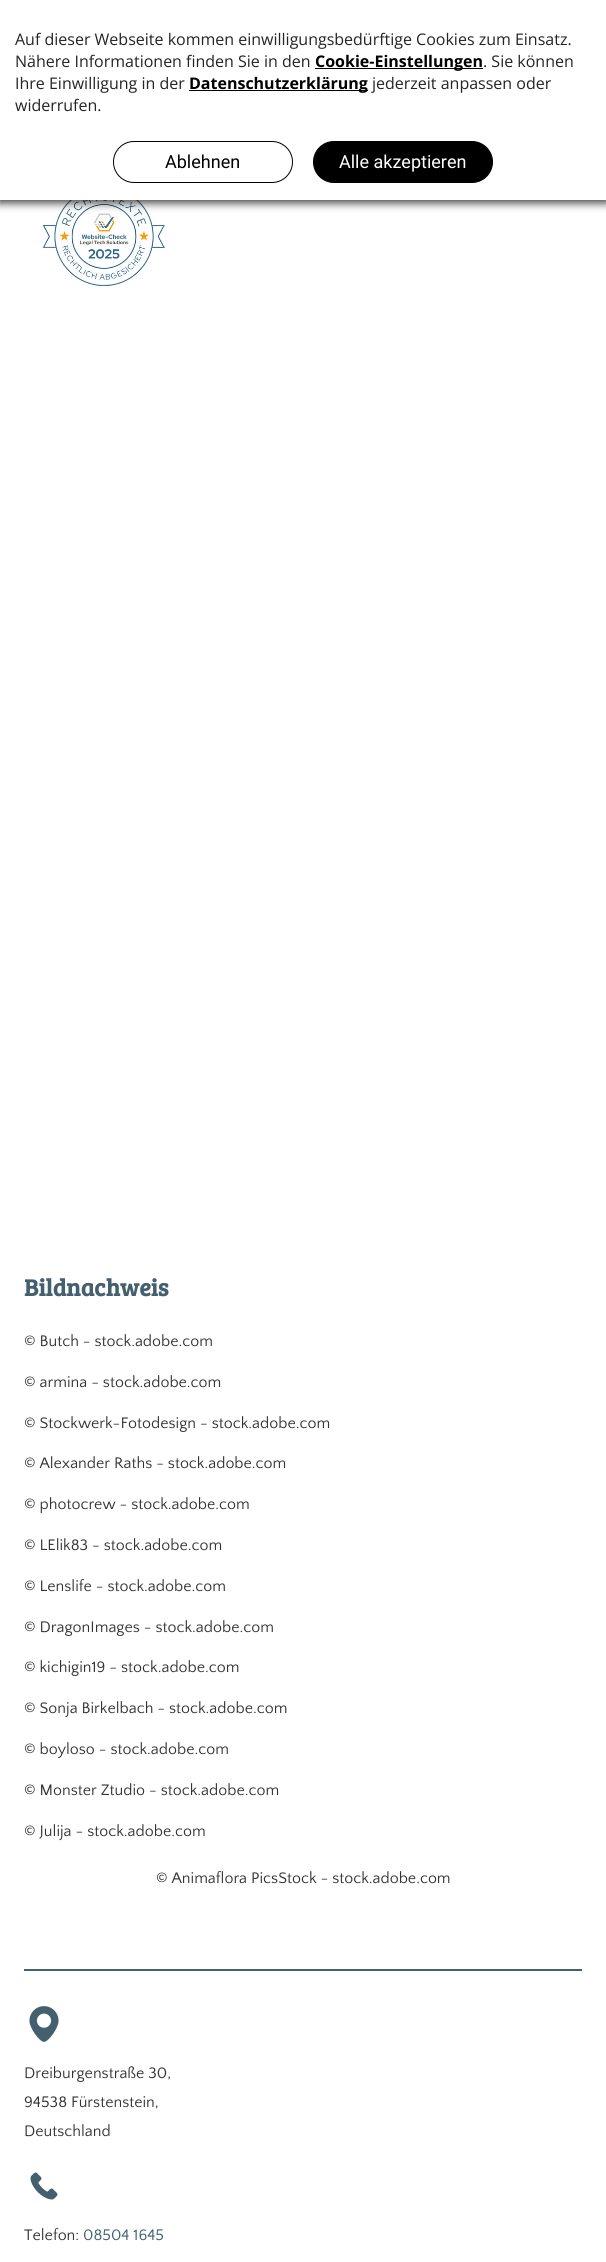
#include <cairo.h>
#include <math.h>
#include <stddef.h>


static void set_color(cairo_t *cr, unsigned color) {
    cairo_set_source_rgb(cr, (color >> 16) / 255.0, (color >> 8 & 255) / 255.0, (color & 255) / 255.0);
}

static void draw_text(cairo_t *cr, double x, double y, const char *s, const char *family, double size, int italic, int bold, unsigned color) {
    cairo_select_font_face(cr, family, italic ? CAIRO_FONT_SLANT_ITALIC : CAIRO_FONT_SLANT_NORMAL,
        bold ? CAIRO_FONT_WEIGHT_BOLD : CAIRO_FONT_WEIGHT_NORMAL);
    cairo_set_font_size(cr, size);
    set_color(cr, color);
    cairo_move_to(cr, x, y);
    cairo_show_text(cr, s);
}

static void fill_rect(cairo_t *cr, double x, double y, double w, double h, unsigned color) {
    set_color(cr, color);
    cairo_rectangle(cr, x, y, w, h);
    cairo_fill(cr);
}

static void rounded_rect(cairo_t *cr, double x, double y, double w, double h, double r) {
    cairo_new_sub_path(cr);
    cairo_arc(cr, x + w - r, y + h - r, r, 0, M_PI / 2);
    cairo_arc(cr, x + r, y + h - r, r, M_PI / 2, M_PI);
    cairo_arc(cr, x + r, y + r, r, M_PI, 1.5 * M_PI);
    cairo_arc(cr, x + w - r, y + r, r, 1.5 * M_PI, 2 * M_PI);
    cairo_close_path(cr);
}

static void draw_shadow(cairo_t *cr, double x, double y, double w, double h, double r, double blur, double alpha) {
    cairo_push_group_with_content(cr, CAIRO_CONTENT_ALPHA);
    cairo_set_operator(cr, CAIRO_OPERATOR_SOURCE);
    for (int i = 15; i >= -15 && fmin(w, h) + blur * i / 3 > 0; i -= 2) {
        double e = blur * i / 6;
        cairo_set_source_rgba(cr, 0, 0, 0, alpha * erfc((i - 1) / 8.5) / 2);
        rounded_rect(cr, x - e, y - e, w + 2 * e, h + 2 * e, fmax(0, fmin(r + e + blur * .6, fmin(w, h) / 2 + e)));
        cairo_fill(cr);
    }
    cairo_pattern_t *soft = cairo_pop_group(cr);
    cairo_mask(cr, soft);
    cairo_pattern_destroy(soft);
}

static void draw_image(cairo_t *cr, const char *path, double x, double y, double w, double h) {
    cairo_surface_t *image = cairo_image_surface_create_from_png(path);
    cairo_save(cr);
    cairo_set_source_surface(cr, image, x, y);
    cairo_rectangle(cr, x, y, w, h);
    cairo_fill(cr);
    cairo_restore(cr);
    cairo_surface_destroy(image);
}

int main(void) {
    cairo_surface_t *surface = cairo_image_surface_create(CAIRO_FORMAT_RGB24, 606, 2262);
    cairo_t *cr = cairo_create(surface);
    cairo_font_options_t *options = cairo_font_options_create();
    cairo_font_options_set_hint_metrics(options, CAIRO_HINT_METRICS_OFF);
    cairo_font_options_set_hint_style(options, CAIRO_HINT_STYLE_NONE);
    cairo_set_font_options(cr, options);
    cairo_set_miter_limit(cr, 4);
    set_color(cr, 0xFFFFFF);
    cairo_paint(cr);
    draw_image(cr, "assets/img1.png", 42, 200, 123, 86);
    set_color(cr, 0x000000);
    draw_shadow(cr, -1, 1, 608, 202, 0, 4.5, 0.75);
    fill_rect(cr, 0, 0, 606, 200, 0xFFFFFF);
    draw_text(cr, 15, 45, "Auf dieser Webseite kommen einwilligungsbedürftige Cookies zum Einsatz.", "Open Sans", 16, 0, 0, 0x242424);
    draw_text(cr, 15, 67, "Nähere Informationen finden Sie in den", "Open Sans", 16, 0, 0, 0x242424);
    fill_rect(cr, 315, 68, 168, 1, 0x000000);
    draw_text(cr, 315, 67, "Cookie-Einstellungen", "Open Sans", 16, 0, 1, 0x000000);
    draw_text(cr, 483, 67, ". Sie können", "Open Sans", 16, 0, 0, 0x242424);
    draw_text(cr, 15, 89, "Ihre Einwilligung in der", "Open Sans", 16, 0, 0, 0x242424);
    fill_rect(cr, 189, 90, 179, 1, 0x000000);
    draw_text(cr, 189, 89, "Datenschutzerklärung", "Open Sans", 16, 0, 1, 0x000000);
    draw_text(cr, 372, 89, "jederzeit anpassen oder", "Open Sans", 16, 0, 0, 0x242424);
    draw_text(cr, 15, 111, "widerrufen.", "Open Sans", 16, 0, 0, 0x242424);
    rounded_rect(cr, 113.5, 141.5, 179, 41, 20.5);
    set_color(cr, 0x000000);
    cairo_set_line_width(cr, 1);
    cairo_stroke(cr);
    draw_text(cr, 165, 168, "Ablehnen", "Roboto", 18, 0, 0, 0x000000);
    rounded_rect(cr, 313.5, 141.5, 179, 41, 20.5);
    cairo_fill_preserve(cr);
    cairo_stroke(cr);
    draw_text(cr, 339, 168, "Alle akzeptieren", "Roboto", 18, 0, 0, 0xFFFFFF);
    draw_text(cr, 24, 1296, "Bildnachweis", "Bree Serif", 24, 0, 1, 0x44606F);
    draw_text(cr, 24, 1346, "© Butch - stock.adobe.com", "Quattrocento Sans", 16, 0, 0, 0x333333);
    draw_text(cr, 24, 1387, "© armina - stock.adobe.com", "Quattrocento Sans", 16, 0, 0, 0x333333);
    draw_text(cr, 24, 1428, "© Stockwerk-Fotodesign - stock.adobe.com", "Quattrocento Sans", 16, 0, 0, 0x333333);
    draw_text(cr, 24, 1468, "© Alexander Raths - stock.adobe.com", "Quattrocento Sans", 16, 0, 0, 0x333333);
    draw_text(cr, 24, 1509, "© photocrew - stock.adobe.com", "Quattrocento Sans", 16, 0, 0, 0x333333);
    draw_text(cr, 24, 1550, "© LElik83 - stock.adobe.com", "Quattrocento Sans", 16, 0, 0, 0x333333);
    draw_text(cr, 24, 1591, "© Lenslife - stock.adobe.com", "Quattrocento Sans", 16, 0, 0, 0x333333);
    draw_text(cr, 24, 1632, "© DragonImages - stock.adobe.com", "Quattrocento Sans", 16, 0, 0, 0x333333);
    draw_text(cr, 24, 1672, "© kichigin19 - stock.adobe.com", "Quattrocento Sans", 16, 0, 0, 0x333333);
    draw_text(cr, 24, 1713, "© Sonja Birkelbach - stock.adobe.com", "Quattrocento Sans", 16, 0, 0, 0x333333);
    draw_text(cr, 24, 1754, "© boyloso - stock.adobe.com", "Quattrocento Sans", 16, 0, 0, 0x333333);
    draw_text(cr, 24, 1795, "© Monster Ztudio - stock.adobe.com", "Quattrocento Sans", 16, 0, 0, 0x333333);
    draw_text(cr, 24, 1836, "© Julija - stock.adobe.com", "Quattrocento Sans", 16, 0, 0, 0x333333);
    draw_text(cr, 156, 1883, "© Animaflora PicsStock - stock.adobe.com", "Quattrocento Sans", 16, 0, 0, 0x333333);
    fill_rect(cr, 24, 1969, 558, 2, 0x44606F);
    draw_image(cr, "assets/img2.png", 29, 2006, 30, 36);
    draw_text(cr, 24, 2078, "Dreiburgenstraße 30,", "Quattrocento Sans", 16, 0, 0, 0x333333);
    draw_text(cr, 24, 2107, "94538 Fürstenstein,", "Quattrocento Sans", 16, 0, 0, 0x333333);
    draw_text(cr, 24, 2136, "Deutschland", "Quattrocento Sans", 16, 0, 0, 0x333333);
    draw_image(cr, "assets/img3.png", 30, 2172, 28, 28);
    draw_text(cr, 24, 2240, "Telefon:", "Quattrocento Sans", 16, 0, 0, 0x333333);
    draw_text(cr, 83, 2240, "08504 1645", "Quattrocento Sans", 16, 0, 0, 0x44606F);
    cairo_surface_write_to_png(surface, "output.png");
    cairo_font_options_destroy(options);
    cairo_destroy(cr);
    cairo_surface_destroy(surface);
    return 0;
}
